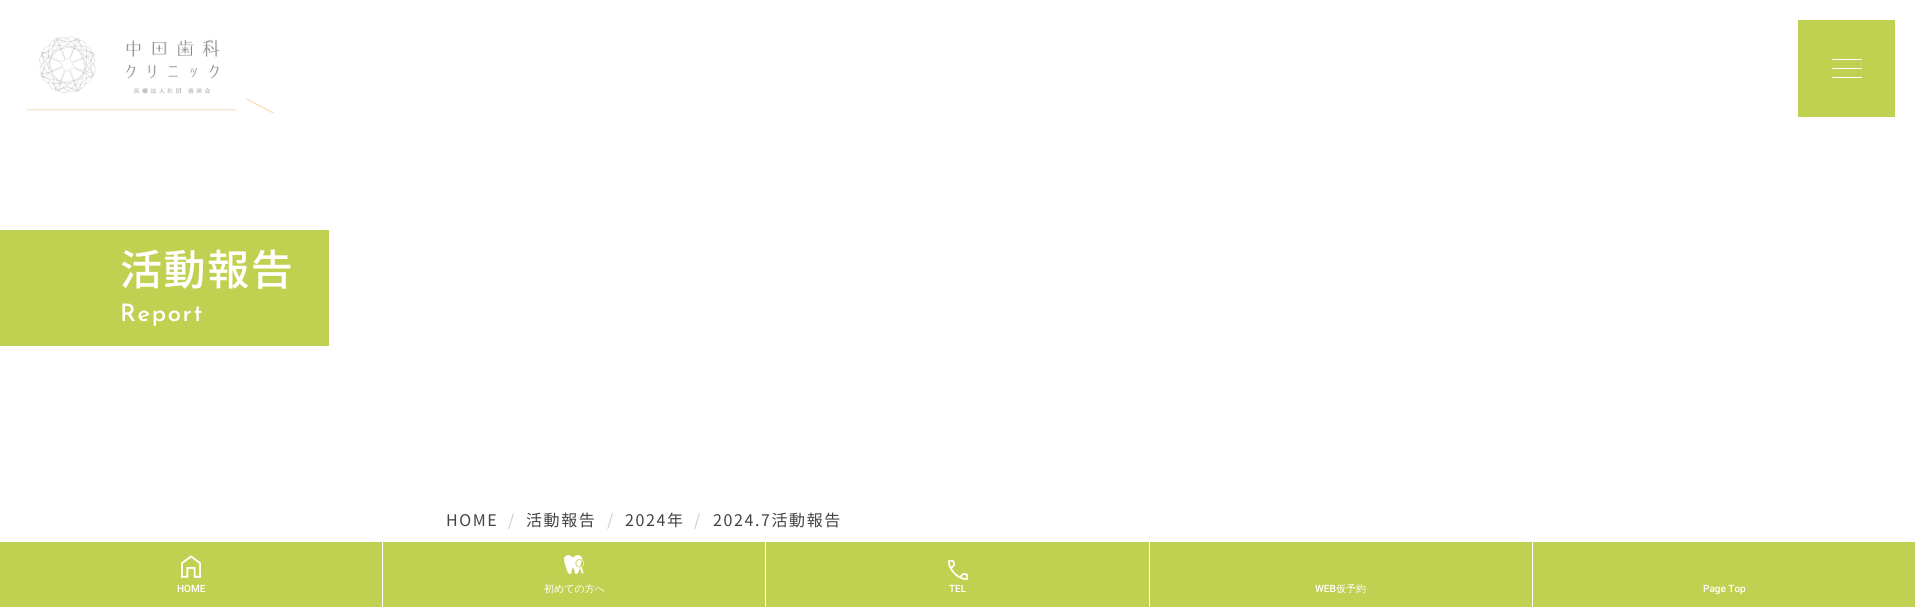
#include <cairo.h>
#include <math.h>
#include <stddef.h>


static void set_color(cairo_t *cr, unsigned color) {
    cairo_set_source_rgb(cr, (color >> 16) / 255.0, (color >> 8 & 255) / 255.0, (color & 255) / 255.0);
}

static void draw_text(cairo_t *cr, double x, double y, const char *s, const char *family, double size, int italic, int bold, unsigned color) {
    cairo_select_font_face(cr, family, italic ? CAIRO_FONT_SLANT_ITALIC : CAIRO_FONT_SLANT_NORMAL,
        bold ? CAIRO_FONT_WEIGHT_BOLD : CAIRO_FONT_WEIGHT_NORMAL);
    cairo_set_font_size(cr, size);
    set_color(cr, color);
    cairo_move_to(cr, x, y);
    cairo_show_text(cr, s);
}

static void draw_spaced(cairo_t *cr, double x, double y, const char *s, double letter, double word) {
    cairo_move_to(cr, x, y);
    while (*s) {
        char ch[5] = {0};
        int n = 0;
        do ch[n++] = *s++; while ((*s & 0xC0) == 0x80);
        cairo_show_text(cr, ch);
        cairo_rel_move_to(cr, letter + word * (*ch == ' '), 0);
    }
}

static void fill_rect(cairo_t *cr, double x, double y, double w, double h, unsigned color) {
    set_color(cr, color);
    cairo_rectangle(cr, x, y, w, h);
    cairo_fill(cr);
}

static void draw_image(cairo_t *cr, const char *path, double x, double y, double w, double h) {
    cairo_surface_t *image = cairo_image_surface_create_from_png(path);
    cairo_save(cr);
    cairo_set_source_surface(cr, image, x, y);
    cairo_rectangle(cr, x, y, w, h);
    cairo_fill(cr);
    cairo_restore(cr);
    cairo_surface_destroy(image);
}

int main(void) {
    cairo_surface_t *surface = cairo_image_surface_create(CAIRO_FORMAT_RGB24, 1915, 607);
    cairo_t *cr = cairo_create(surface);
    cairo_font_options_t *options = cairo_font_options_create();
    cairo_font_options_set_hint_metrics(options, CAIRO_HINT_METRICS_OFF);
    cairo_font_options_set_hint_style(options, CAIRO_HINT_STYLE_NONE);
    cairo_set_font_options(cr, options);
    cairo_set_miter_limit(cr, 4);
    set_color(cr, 0xFFFFFF);
    cairo_paint(cr);
    fill_rect(cr, 0, 230, 329, 116, 0xC0D151);
    cairo_select_font_face(cr, "Noto Sans JP Medium", CAIRO_FONT_SLANT_NORMAL, CAIRO_FONT_WEIGHT_NORMAL);
    cairo_set_font_size(cr, 42);
    set_color(cr, 0xFFFFFF);
    draw_spaced(cr, 120, 285, "活動報告", 1.6, 0);
    cairo_select_font_face(cr, "Josefin Sans Medium", CAIRO_FONT_SLANT_NORMAL, CAIRO_FONT_WEIGHT_NORMAL);
    cairo_set_font_size(cr, 24);
    draw_spaced(cr, 120, 321, "Report", 1.6, 0);
    cairo_select_font_face(cr, "Noto Sans JP", CAIRO_FONT_SLANT_NORMAL, CAIRO_FONT_WEIGHT_NORMAL);
    cairo_set_font_size(cr, 16);
    set_color(cr, 0x444444);
    draw_spaced(cr, 446, 526, "HOME", 1.6, 0);
    set_color(cr, 0xCCCCCC);
    draw_spaced(cr, 508, 526, "/", 1.6, 0);
    set_color(cr, 0x444444);
    draw_spaced(cr, 526, 526, "活動報告", 1.6, 0);
    set_color(cr, 0xCCCCCC);
    draw_spaced(cr, 607, 526, "/", 1.6, 0);
    set_color(cr, 0x444444);
    draw_spaced(cr, 625, 526, "2024年", 1.6, 0);
    set_color(cr, 0xCCCCCC);
    draw_spaced(cr, 694, 526, "/", 1.6, 0);
    set_color(cr, 0x444444);
    draw_spaced(cr, 713, 526, "2024.7活動報告", 1.6, 0);
    draw_image(cr, "assets/img1.png", 26, 36, 248, 78);
    fill_rect(cr, 1798, 20, 97, 97, 0xC0D151);
    fill_rect(cr, 1832, 59, 30, 1, 0xFFFFFF);
    fill_rect(cr, 1832, 68, 30, 1, 0xFFFFFF);
    fill_rect(cr, 1832, 77, 30, 1, 0xFFFFFF);
    fill_rect(cr, 0, 542, 1915, 65, 0xC0D151);
    draw_image(cr, "assets/img2.png", 181, 555, 20, 23);
    draw_text(cr, 177, 592, "HOME", "Roboto Medium", 10, 0, 0, 0xFFFFFF);
    draw_image(cr, "assets/img3.png", 564, 555, 20, 19);
    fill_rect(cr, 382, 542, 1, 65, 0xFFFFFF);
    draw_text(cr, 544, 592, "初めての方へ", "WenQuanYi Zen Hei Medium", 10, 0, 0, 0xFFFFFF);
    draw_image(cr, "assets/img4.png", 948, 560, 20, 20);
    fill_rect(cr, 765, 542, 1, 65, 0xFFFFFF);
    draw_text(cr, 949, 592, "TEL", "Roboto Medium", 10, 0, 0, 0xFFFFFF);
    fill_rect(cr, 1149, 542, 1, 65, 0xFFFFFF);
    draw_text(cr, 1315, 592, "WEB", "Roboto Medium", 10, 0, 0, 0xFFFFFF);
    draw_text(cr, 1336, 592, "仮予約", "WenQuanYi Zen Hei Medium", 10, 0, 0, 0xFFFFFF);
    fill_rect(cr, 1532, 542, 1, 65, 0xFFFFFF);
    draw_text(cr, 1703, 592, "Page Top", "Roboto Medium", 10, 0, 0, 0xFFFFFF);
    cairo_surface_write_to_png(surface, "output.png");
    cairo_font_options_destroy(options);
    cairo_destroy(cr);
    cairo_surface_destroy(surface);
    return 0;
}
